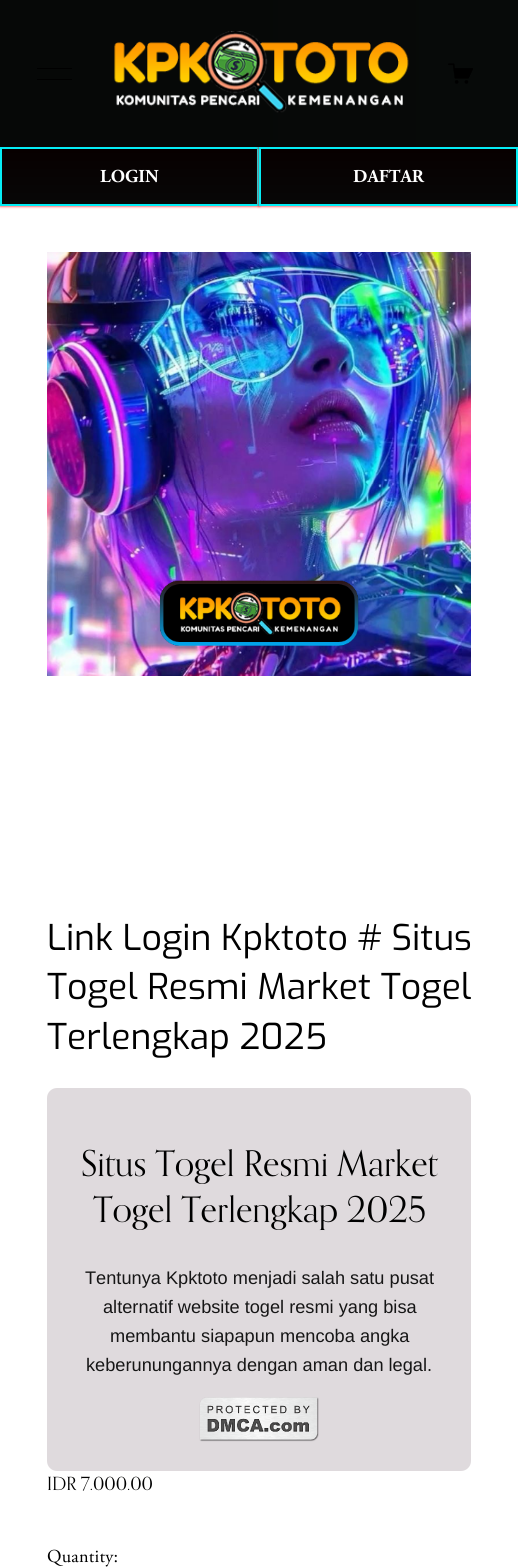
#include <cairo.h>
#include <math.h>
#include <stddef.h>


static void set_color(cairo_t *cr, unsigned color) {
    cairo_set_source_rgb(cr, (color >> 16) / 255.0, (color >> 8 & 255) / 255.0, (color & 255) / 255.0);
}

static void draw_text(cairo_t *cr, double x, double y, const char *s, const char *family, double size, int italic, int bold, unsigned color) {
    cairo_select_font_face(cr, family, italic ? CAIRO_FONT_SLANT_ITALIC : CAIRO_FONT_SLANT_NORMAL,
        bold ? CAIRO_FONT_WEIGHT_BOLD : CAIRO_FONT_WEIGHT_NORMAL);
    cairo_set_font_size(cr, size);
    set_color(cr, color);
    cairo_move_to(cr, x, y);
    cairo_show_text(cr, s);
}

static void draw_spaced(cairo_t *cr, double x, double y, const char *s, double letter, double word) {
    cairo_move_to(cr, x, y);
    while (*s) {
        char ch[5] = {0};
        int n = 0;
        do ch[n++] = *s++; while ((*s & 0xC0) == 0x80);
        cairo_show_text(cr, ch);
        cairo_rel_move_to(cr, letter + word * (*ch == ' '), 0);
    }
}

static void fill_rect(cairo_t *cr, double x, double y, double w, double h, unsigned color) {
    set_color(cr, color);
    cairo_rectangle(cr, x, y, w, h);
    cairo_fill(cr);
}

static void rounded_rect(cairo_t *cr, double x, double y, double w, double h, double r) {
    cairo_new_sub_path(cr);
    cairo_arc(cr, x + w - r, y + h - r, r, 0, M_PI / 2);
    cairo_arc(cr, x + r, y + h - r, r, M_PI / 2, M_PI);
    cairo_arc(cr, x + r, y + r, r, M_PI, 1.5 * M_PI);
    cairo_arc(cr, x + w - r, y + r, r, 1.5 * M_PI, 2 * M_PI);
    cairo_close_path(cr);
}

static void draw_shadow(cairo_t *cr, double x, double y, double w, double h, double r, double blur, double alpha) {
    cairo_push_group_with_content(cr, CAIRO_CONTENT_ALPHA);
    cairo_set_operator(cr, CAIRO_OPERATOR_SOURCE);
    for (int i = 15; i >= -15 && fmin(w, h) + blur * i / 3 > 0; i -= 2) {
        double e = blur * i / 6;
        cairo_set_source_rgba(cr, 0, 0, 0, alpha * erfc((i - 1) / 8.5) / 2);
        rounded_rect(cr, x - e, y - e, w + 2 * e, h + 2 * e, fmax(0, fmin(r + e + blur * .6, fmin(w, h) / 2 + e)));
        cairo_fill(cr);
    }
    cairo_pattern_t *soft = cairo_pop_group(cr);
    cairo_mask(cr, soft);
    cairo_pattern_destroy(soft);
}

static void draw_image(cairo_t *cr, const char *path, double x, double y, double w, double h) {
    cairo_surface_t *image = cairo_image_surface_create_from_png(path);
    cairo_save(cr);
    cairo_set_source_surface(cr, image, x, y);
    cairo_rectangle(cr, x, y, w, h);
    cairo_fill(cr);
    cairo_restore(cr);
    cairo_surface_destroy(image);
}

int main(void) {
    cairo_surface_t *surface = cairo_image_surface_create(CAIRO_FORMAT_RGB24, 518, 1567);
    cairo_t *cr = cairo_create(surface);
    cairo_font_options_t *options = cairo_font_options_create();
    cairo_font_options_set_hint_metrics(options, CAIRO_HINT_METRICS_OFF);
    cairo_font_options_set_hint_style(options, CAIRO_HINT_STYLE_NONE);
    cairo_set_font_options(cr, options);
    cairo_set_miter_limit(cr, 4);
    cairo_pattern_t *gradient;
    set_color(cr, 0xFFFFFF);
    cairo_paint(cr);
    set_color(cr, 0xFF0000);
    draw_shadow(cr, 0, 147, 259, 59, 0, 1.5, 1);
    gradient = cairo_pattern_create_linear(130, 149, 130, 204);
    cairo_pattern_add_color_stop_rgba(gradient, 0, 0.027, 0, 0, 1);
    cairo_pattern_add_color_stop_rgba(gradient, 1, 0.027, 0.027, 0.027, 1);
    cairo_set_source(cr, gradient);
    cairo_pattern_destroy(gradient);
    cairo_rectangle(cr, 2, 149, 255, 55);
    cairo_fill(cr);
    cairo_rectangle(cr, 1, 148, 257, 57);
    set_color(cr, 0x05EDF5);
    cairo_stroke(cr);
    set_color(cr, 0xFF0000);
    draw_shadow(cr, 259, 147, 259, 59, 0, 1.5, 1);
    gradient = cairo_pattern_create_linear(-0.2, 74, 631, 73);
    cairo_pattern_add_color_stop_rgba(gradient, 0.29, 0.024, 0.031, 0.027, 1);
    cairo_pattern_add_color_stop_rgba(gradient, 1, 0.031, 0.043, 0.039, 1);
    cairo_set_source(cr, gradient);
    cairo_pattern_destroy(gradient);
    cairo_rectangle(cr, 0, 0, 518, 147);
    cairo_fill(cr);
    fill_rect(cr, 37, 68, 35, 1, 0x000000);
    fill_rect(cr, 37, 79, 35, 1, 0x000000);
    draw_image(cr, "assets/img1.png", 114, 31, 295, 82);
    draw_image(cr, "assets/img2.png", 448, 63, 25, 21);
    draw_text(cr, 100, 182, "LOGIN", "Adobe Garamond", 18.2, 0, 1, 0xFFFFFF);
    gradient = cairo_pattern_create_linear(389, 149, 389, 204);
    cairo_pattern_add_color_stop_rgba(gradient, 0, 0.027, 0, 0, 1);
    cairo_pattern_add_color_stop_rgba(gradient, 1, 0.027, 0.027, 0.027, 1);
    cairo_set_source(cr, gradient);
    cairo_pattern_destroy(gradient);
    cairo_rectangle(cr, 261, 149, 255, 55);
    cairo_fill(cr);
    cairo_rectangle(cr, 260, 148, 257, 57);
    set_color(cr, 0x05EDF5);
    cairo_stroke(cr);
    draw_text(cr, 353, 182, "DAFTAR", "Adobe Garamond", 18.2, 0, 1, 0xFFFFFF);
    draw_image(cr, "assets/img3.png", 47, 252, 424, 424);
    draw_text(cr, 47, 950, "Link Login Kpktoto # Situs", "Exo", 35.5, 0, 0, 0x000000);
    draw_text(cr, 47, 999, "Togel Resmi Market Togel", "Exo", 35.5, 0, 0, 0x000000);
    draw_text(cr, 47, 1049, "Terlengkap 2025", "Exo", 35.5, 0, 0, 0x000000);
    set_color(cr, 0xDFDADD);
    rounded_rect(cr, 47, 1088, 424, 383, 10);
    cairo_fill(cr);
    draw_text(cr, 81, 1176, "Situs Togel Resmi Market", "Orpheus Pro", 35.5, 0, 0, 0x000000);
    draw_text(cr, 93, 1222, "Togel Terlengkap 2025", "Orpheus Pro", 35.5, 0, 0, 0x000000);
    draw_text(cr, 85, 1284, "Tentunya Kpktoto menjadi salah satu pusat", "Liberation Sans", 18.2, 0, 0, 0x161616);
    draw_text(cr, 103, 1313, "alternatif website togel resmi yang bisa", "Liberation Sans", 18.2, 0, 0, 0x161616);
    draw_text(cr, 110, 1342, "membantu siapapun mencoba angka", "Liberation Sans", 18.2, 0, 0, 0x161616);
    draw_text(cr, 86, 1371, "keberunungannya dengan aman dan legal.", "Liberation Sans", 18.2, 0, 0, 0x161616);
    draw_image(cr, "assets/img4.png", 199, 1397, 120, 45);
    draw_text(cr, 47, 1490, "IDR 7.000.00", "Orpheus Pro", 18.2, 0, 0, 0x000000);
    cairo_select_font_face(cr, "Adobe Garamond", CAIRO_FONT_SLANT_NORMAL, CAIRO_FONT_WEIGHT_NORMAL);
    draw_spaced(cr, 47, 1562, "Quantity:", 0.25, 0);
    cairo_surface_write_to_png(surface, "output.png");
    cairo_font_options_destroy(options);
    cairo_destroy(cr);
    cairo_surface_destroy(surface);
    return 0;
}
